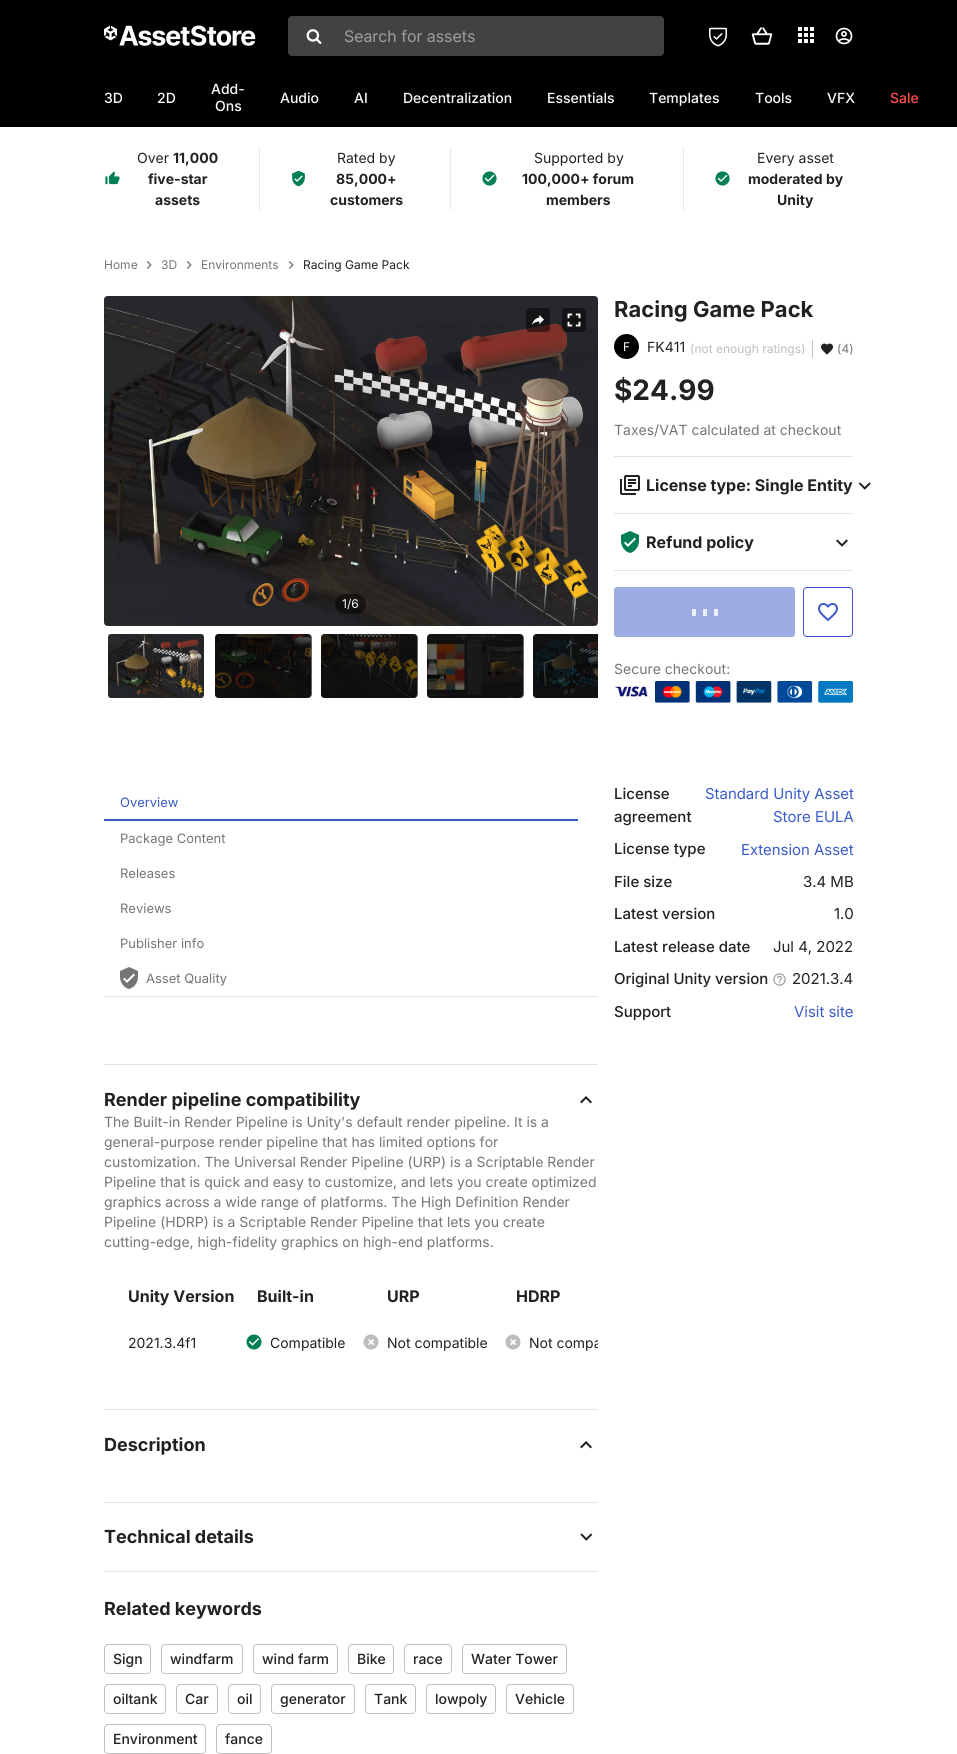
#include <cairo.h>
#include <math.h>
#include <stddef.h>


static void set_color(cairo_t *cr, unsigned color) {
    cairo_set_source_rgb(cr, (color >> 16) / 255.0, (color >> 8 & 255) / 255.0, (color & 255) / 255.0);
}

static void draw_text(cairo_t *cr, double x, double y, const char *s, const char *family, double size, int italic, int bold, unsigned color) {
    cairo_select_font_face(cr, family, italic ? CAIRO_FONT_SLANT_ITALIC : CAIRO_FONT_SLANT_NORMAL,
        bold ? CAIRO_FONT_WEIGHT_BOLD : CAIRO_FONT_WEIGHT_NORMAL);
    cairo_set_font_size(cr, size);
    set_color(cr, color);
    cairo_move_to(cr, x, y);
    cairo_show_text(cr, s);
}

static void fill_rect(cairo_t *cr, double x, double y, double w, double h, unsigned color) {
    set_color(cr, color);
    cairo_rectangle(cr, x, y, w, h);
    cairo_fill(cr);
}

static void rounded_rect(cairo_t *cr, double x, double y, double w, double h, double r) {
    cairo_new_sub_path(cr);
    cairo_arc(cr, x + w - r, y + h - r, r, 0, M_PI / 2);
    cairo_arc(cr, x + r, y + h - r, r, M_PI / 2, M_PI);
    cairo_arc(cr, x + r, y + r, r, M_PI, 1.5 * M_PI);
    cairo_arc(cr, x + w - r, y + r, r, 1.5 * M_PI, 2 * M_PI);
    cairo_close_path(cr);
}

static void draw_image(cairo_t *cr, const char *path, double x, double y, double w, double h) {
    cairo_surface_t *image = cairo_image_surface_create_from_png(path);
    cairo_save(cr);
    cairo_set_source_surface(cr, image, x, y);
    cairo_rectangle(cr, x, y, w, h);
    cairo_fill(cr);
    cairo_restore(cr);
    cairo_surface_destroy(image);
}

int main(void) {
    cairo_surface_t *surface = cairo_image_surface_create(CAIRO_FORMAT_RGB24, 957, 1754);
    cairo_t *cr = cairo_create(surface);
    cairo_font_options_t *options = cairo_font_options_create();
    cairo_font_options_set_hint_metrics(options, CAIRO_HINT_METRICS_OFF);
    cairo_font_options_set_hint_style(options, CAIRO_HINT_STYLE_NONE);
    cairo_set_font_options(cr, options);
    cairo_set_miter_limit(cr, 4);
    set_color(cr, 0xFFFFFF);
    cairo_paint(cr);
    fill_rect(cr, 0, 0, 957, 127, 0x000000);
    draw_image(cr, "assets/img1.png", 104, 25, 152, 21);
    set_color(cr, 0x424242);
    rounded_rect(cr, 288, 16, 376, 40, 4);
    cairo_fill(cr);
    draw_image(cr, "assets/img2.png", 306, 29, 16, 15);
    draw_text(cr, 344, 42, "Search for assets", "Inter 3", 16, 0, 0, 0x9E9E9E);
    draw_image(cr, "assets/img3.png", 709, 27, 18, 20);
    draw_image(cr, "assets/img4.png", 751, 27, 22, 18);
    draw_image(cr, "assets/img5.png", 798, 27, 16, 16);
    draw_image(cr, "assets/img6.png", 835, 27, 18, 18);
    draw_text(cr, 104, 103, "3D", "Inter Medium", 14, 0, 0, 0xFAFAFA);
    draw_text(cr, 157, 103, "2D", "Inter Medium", 14, 0, 0, 0xFAFAFA);
    draw_text(cr, 211, 94, "Add-", "Inter Medium", 14, 0, 0, 0xFAFAFA);
    draw_text(cr, 215, 111, "Ons", "Inter Medium", 14, 0, 0, 0xFAFAFA);
    draw_text(cr, 280, 103, "Audio", "Inter Medium", 14, 0, 0, 0xFAFAFA);
    draw_text(cr, 354, 103, "AI", "Inter Medium", 14, 0, 0, 0xFAFAFA);
    draw_text(cr, 403, 103, "Decentralization", "Inter Medium", 14, 0, 0, 0xFAFAFA);
    draw_text(cr, 547, 103, "Essentials", "Inter Medium", 14, 0, 0, 0xFAFAFA);
    draw_text(cr, 649, 103, "Templates", "Inter Medium", 14, 0, 0, 0xFAFAFA);
    draw_text(cr, 755, 103, "Tools", "Inter Medium", 14, 0, 0, 0xFAFAFA);
    draw_text(cr, 827, 103, "VFX", "Inter Medium", 14, 0, 0, 0xFAFAFA);
    draw_text(cr, 890, 103, "Sale", "Inter Medium", 14, 0, 0, 0xFF5050);
    draw_image(cr, "assets/img7.png", 105, 171, 15, 14);
    draw_text(cr, 137, 163, "Over", "Inter", 14, 0, 0, 0x212121);
    draw_text(cr, 173, 163, "11,000", "Inter", 14, 0, 1, 0x212121);
    draw_text(cr, 148, 184, "five-star", "Inter", 14, 0, 1, 0x212121);
    draw_text(cr, 155, 205, "assets", "Inter", 14, 0, 1, 0x212121);
    fill_rect(cr, 450, 147, 1, 63, 0xE9E9E9);
    fill_rect(cr, 259, 147, 1, 63, 0xE9E9E9);
    draw_image(cr, "assets/img8.png", 292, 170, 13, 17);
    draw_text(cr, 337, 163, "Rated by", "Inter", 14, 0, 0, 0x212121);
    draw_text(cr, 336, 184, "85,000+", "Inter", 14, 0, 1, 0x212121);
    draw_text(cr, 330, 205, "customers", "Inter", 14, 0, 1, 0x212121);
    fill_rect(cr, 683, 147, 1, 63, 0xE9E9E9);
    draw_image(cr, "assets/img9.png", 482, 171, 15, 15);
    draw_text(cr, 534, 163, "Supported by", "Inter", 14, 0, 0, 0x212121);
    draw_text(cr, 522, 184, "100,000+ forum", "Inter", 14, 0, 1, 0x212121);
    draw_text(cr, 546, 205, "members", "Inter", 14, 0, 1, 0x212121);
    draw_image(cr, "assets/img9.png", 715, 171, 15, 15);
    draw_text(cr, 757, 163, "Every asset", "Inter", 14, 0, 0, 0x212121);
    draw_text(cr, 748, 184, "moderated by", "Inter", 14, 0, 1, 0x212121);
    draw_text(cr, 777, 205, "Unity", "Inter", 14, 0, 1, 0x212121);
    draw_text(cr, 104, 269, "Home", "Inter", 12, 0, 0, 0x757575);
    draw_image(cr, "assets/img10.png", 146, 261, 6, 8);
    draw_text(cr, 161, 269, "3D", "Inter", 12, 0, 0, 0x757575);
    draw_image(cr, "assets/img10.png", 186, 261, 6, 8);
    draw_text(cr, 201, 269, "Environments", "Inter", 12, 0, 0, 0x757575);
    draw_image(cr, "assets/img10.png", 288, 261, 6, 8);
    draw_text(cr, 303, 269, "Racing Game Pack", "Inter", 12, 0, 0, 0x212121);
    draw_image(cr, "assets/img13.png", 104, 296, 494, 330);
    cairo_set_source_rgba(cr, 0, 0, 0, 0.5);
    rounded_rect(cr, 526, 308, 24, 24, 4);
    cairo_fill(cr);
    draw_image(cr, "assets/img11.png", 532, 315, 12, 10);
    rounded_rect(cr, 562, 308, 24, 24, 4);
    cairo_fill(cr);
    draw_image(cr, "assets/img12.png", 567, 313, 14, 14);
    rounded_rect(cr, 335, 594, 31, 20, 10);
    cairo_fill(cr);
    draw_text(cr, 342, 608, "1/6", "Inter", 12, 0, 0, 0xFAFAFA);
    draw_image(cr, "assets/img14.png", 108, 634, 96, 64);
    rounded_rect(cr, 107.5, 633.5, 97, 65, 3.5);
    set_color(cr, 0xFFFFFF);
    cairo_set_line_width(cr, 1);
    cairo_stroke(cr);
    draw_image(cr, "assets/img15.png", 215, 634, 96, 64);
    cairo_set_source_rgba(cr, 0, 0, 0, 0.6);
    rounded_rect(cr, 215, 634, 97, 64, 4);
    cairo_fill(cr);
    draw_image(cr, "assets/img16.png", 321, 634, 96, 64);
    rounded_rect(cr, 321, 634, 97, 64, 4);
    cairo_fill(cr);
    draw_image(cr, "assets/img17.png", 427, 634, 96, 64);
    rounded_rect(cr, 427, 634, 97, 64, 4);
    cairo_fill(cr);
    draw_image(cr, "assets/img18.png", 533, 634, 65, 64);
    cairo_new_path(cr);
    cairo_move_to(cr, 537, 634);
    cairo_line_to(cr, 598, 634);
    cairo_line_to(cr, 598, 698);
    cairo_line_to(cr, 537, 698);
    cairo_curve_to(cr, 535, 698, 533, 696, 533, 694);
    cairo_line_to(cr, 533, 638);
    cairo_curve_to(cr, 533, 636, 535, 634, 537, 634);
    cairo_close_path(cr);
    cairo_fill(cr);
    fill_rect(cr, 104, 996, 494, 1, 0xE4E4E4);
    fill_rect(cr, 104, 819, 474, 2, 0x3A5BC7);
    draw_text(cr, 120, 807, "Overview", "Inter", 13, 0, 0, 0x3A5BC7);
    draw_text(cr, 120, 843, "Package Content", "Inter", 13, 0, 0, 0x757575);
    draw_text(cr, 120, 878, "Releases", "Inter", 13, 0, 0, 0x757575);
    draw_text(cr, 120, 913, "Reviews", "Inter", 13, 0, 0, 0x757575);
    draw_text(cr, 120, 948, "Publisher info", "Inter", 13, 0, 0, 0x757575);
    draw_image(cr, "assets/img19.png", 120, 967, 18, 22);
    draw_text(cr, 146, 983, "Asset Quality", "Inter", 13, 0, 0, 0x757575);
    fill_rect(cr, 104, 1064, 494, 1, 0xE4E4E4);
    draw_text(cr, 104, 1106, "Render pipeline compatibility", "Inter", 18, 0, 1, 0x212121);
    draw_image(cr, "assets/img20.png", 580, 1096, 12, 8);
    draw_text(cr, 104, 1127, "The Built-in Render Pipeline is Unity's default render pipeline. It is a", "Inter", 14, 0, 0, 0x757575);
    draw_text(cr, 104, 1147, "general-purpose render pipeline that has limited options for", "Inter", 14, 0, 0, 0x757575);
    draw_text(cr, 104, 1167, "customization. The Universal Render Pipeline (URP) is a Scriptable Render", "Inter", 14, 0, 0, 0x757575);
    draw_text(cr, 104, 1187, "Pipeline that is quick and easy to customize, and lets you create optimized", "Inter", 14, 0, 0, 0x757575);
    draw_text(cr, 104, 1207, "graphics across a wide range of platforms. The High Definition Render", "Inter", 14, 0, 0, 0x757575);
    draw_text(cr, 104, 1227, "Pipeline (HDRP) is a Scriptable Render Pipeline that lets you create", "Inter", 14, 0, 0, 0x757575);
    draw_text(cr, 104, 1247, "cutting-edge, high-fidelity graphics on high-end platforms.", "Inter", 14, 0, 0, 0x757575);
    draw_text(cr, 128, 1302, "Unity Version", "Inter", 16, 0, 1, 0x212121);
    draw_text(cr, 257, 1302, "Built-in", "Inter", 16, 0, 1, 0x212121);
    draw_text(cr, 387, 1302, "URP", "Inter", 16, 0, 1, 0x212121);
    draw_text(cr, 516, 1302, "HDRP", "Inter", 16, 0, 1, 0x212121);
    draw_text(cr, 128, 1348, "2021.3.4f1", "Inter", 14, 0, 0, 0x212121);
    draw_image(cr, "assets/img21.png", 246, 1334, 16, 16);
    draw_text(cr, 270, 1348, "Compatible", "Inter", 14, 0, 0, 0x212121);
    draw_image(cr, "assets/img22.png", 363, 1334, 16, 16);
    draw_text(cr, 387, 1348, "Not compatible", "Inter", 14, 0, 0, 0x212121);
    draw_image(cr, "assets/img22.png", 505, 1334, 16, 16);
    cairo_save(cr);
    cairo_rectangle(cr, 104, 1272, 494, 93);
    cairo_clip(cr);
    draw_text(cr, 529, 1348, "Not compa", "Inter", 14, 0, 0, 0x212121);
    cairo_restore(cr);
    fill_rect(cr, 104, 1409, 494, 1, 0xE4E4E4);
    draw_text(cr, 104, 1451, "Description", "Inter", 18, 0, 1, 0x212121);
    draw_image(cr, "assets/img20.png", 580, 1441, 12, 8);
    fill_rect(cr, 104, 1502, 494, 1, 0xE4E4E4);
    draw_text(cr, 104, 1543, "Technical details", "Inter", 18, 0, 1, 0x212121);
    draw_image(cr, "assets/img23.png", 580, 1533, 13, 8);
    fill_rect(cr, 104, 1571, 494, 1, 0xE4E4E4);
    draw_text(cr, 104, 1615, "Related keywords", "Inter", 18, 0, 1, 0x212121);
    rounded_rect(cr, 104.5, 1644.5, 46, 29, 3.5);
    set_color(cr, 0xC2C2C2);
    cairo_stroke(cr);
    draw_text(cr, 113, 1664, "Sign", "Inter Medium", 14, 0, 0, 0x212121);
    rounded_rect(cr, 161.5, 1644.5, 81, 29, 3.5);
    set_color(cr, 0xC2C2C2);
    cairo_stroke(cr);
    draw_text(cr, 170, 1664, "windfarm", "Inter Medium", 14, 0, 0, 0x212121);
    rounded_rect(cr, 253.5, 1644.5, 84, 29, 3.5);
    set_color(cr, 0xC2C2C2);
    cairo_stroke(cr);
    draw_text(cr, 262, 1664, "wind farm", "Inter Medium", 14, 0, 0, 0x212121);
    rounded_rect(cr, 348.5, 1644.5, 45, 29, 3.5);
    set_color(cr, 0xC2C2C2);
    cairo_stroke(cr);
    draw_text(cr, 357, 1664, "Bike", "Inter Medium", 14, 0, 0, 0x212121);
    rounded_rect(cr, 404.5, 1644.5, 47, 29, 3.5);
    set_color(cr, 0xC2C2C2);
    cairo_stroke(cr);
    draw_text(cr, 413, 1664, "race", "Inter Medium", 14, 0, 0, 0x212121);
    rounded_rect(cr, 462.5, 1644.5, 104, 29, 3.5);
    set_color(cr, 0xC2C2C2);
    cairo_stroke(cr);
    draw_text(cr, 471, 1664, "Water Tower", "Inter Medium", 14, 0, 0, 0x212121);
    rounded_rect(cr, 104.5, 1684.5, 61, 29, 3.5);
    set_color(cr, 0xC2C2C2);
    cairo_stroke(cr);
    draw_text(cr, 113, 1704, "oiltank", "Inter Medium", 14, 0, 0, 0x212121);
    rounded_rect(cr, 176.5, 1684.5, 41, 29, 3.5);
    set_color(cr, 0xC2C2C2);
    cairo_stroke(cr);
    draw_text(cr, 185, 1704, "Car", "Inter Medium", 14, 0, 0, 0x212121);
    rounded_rect(cr, 228.5, 1684.5, 32, 29, 3.5);
    set_color(cr, 0xC2C2C2);
    cairo_stroke(cr);
    draw_text(cr, 237, 1704, "oil", "Inter Medium", 14, 0, 0, 0x212121);
    rounded_rect(cr, 271.5, 1684.5, 83, 29, 3.5);
    set_color(cr, 0xC2C2C2);
    cairo_stroke(cr);
    draw_text(cr, 280, 1704, "generator", "Inter Medium", 14, 0, 0, 0x212121);
    rounded_rect(cr, 365.5, 1684.5, 50, 29, 3.5);
    set_color(cr, 0xC2C2C2);
    cairo_stroke(cr);
    draw_text(cr, 374, 1704, "Tank", "Inter Medium", 14, 0, 0, 0x212121);
    rounded_rect(cr, 426.5, 1684.5, 69, 29, 3.5);
    set_color(cr, 0xC2C2C2);
    cairo_stroke(cr);
    draw_text(cr, 435, 1704, "lowpoly", "Inter Medium", 14, 0, 0, 0x212121);
    rounded_rect(cr, 506.5, 1684.5, 67, 29, 3.5);
    set_color(cr, 0xC2C2C2);
    cairo_stroke(cr);
    draw_text(cr, 515, 1704, "Vehicle", "Inter Medium", 14, 0, 0, 0x212121);
    rounded_rect(cr, 104.5, 1724.5, 101, 29, 3.5);
    set_color(cr, 0xC2C2C2);
    cairo_stroke(cr);
    draw_text(cr, 113, 1744, "Environment", "Inter Medium", 14, 0, 0, 0x212121);
    rounded_rect(cr, 216.5, 1724.5, 55, 29, 3.5);
    set_color(cr, 0xC2C2C2);
    cairo_stroke(cr);
    draw_text(cr, 225, 1744, "fance", "Inter Medium", 14, 0, 0, 0x212121);
    draw_text(cr, 614, 317, "Racing Game Pack", "Inter", 22, 0, 1, 0x212121);
    set_color(cr, 0x000000);
    cairo_new_path(cr);
    cairo_arc(cr, 626.5, 346.5, 12.5, 0, 2 * M_PI);
    cairo_fill(cr);
    draw_text(cr, 623, 351, "F", "Inter", 12, 0, 0, 0xFAFAFA);
    draw_text(cr, 647, 352, "FK411", "Inter", 14, 0, 0, 0x212121);
    draw_text(cr, 690, 353, "(not enough ratings)", "Inter", 12, 0, 0, 0xBDBDBD);
    fill_rect(cr, 812, 340, 1, 18, 0xC2C2C2);
    draw_image(cr, "assets/img24.png", 821, 343, 12, 12);
    draw_text(cr, 837, 353, "(4)", "Inter", 12, 0, 0, 0x757575);
    draw_text(cr, 614, 400, "$24.99", "Inter", 28, 0, 1, 0x212121);
    draw_text(cr, 614, 435, "Taxes/VAT calculated at checkout", "Inter", 14, 0, 0, 0x757575);
    fill_rect(cr, 614, 456, 239, 1, 0xE4E4E4);
    draw_image(cr, "assets/img25.png", 620, 475, 20, 20);
    draw_text(cr, 646, 491, "License type: Single Entity", "Inter", 16, 0, 1, 0x212121);
    draw_image(cr, "assets/img26.png", 858, 482, 13, 8);
    fill_rect(cr, 614, 513, 239, 1, 0xE4E4E4);
    fill_rect(cr, 614, 570, 239, 1, 0xE4E4E4);
    draw_image(cr, "assets/img27.png", 621, 531, 18, 22);
    draw_text(cr, 646, 548, "Refund policy", "Inter", 16, 0, 1, 0x212121);
    draw_image(cr, "assets/img28.png", 836, 539, 12, 8);
    set_color(cr, 0x9DADE3);
    rounded_rect(cr, 614, 587, 181, 50, 3);
    cairo_fill(cr);
    fill_rect(cr, 692, 609, 4, 7, 0xEBEFF9);
    fill_rect(cr, 703, 609, 4, 7, 0xEBEFF9);
    fill_rect(cr, 714, 609, 4, 7, 0xEBEFF9);
    rounded_rect(cr, 803.5, 587.5, 49, 49, 3.5);
    set_color(cr, 0x3A5BC7);
    cairo_stroke(cr);
    draw_image(cr, "assets/img29.png", 818, 603, 20, 19);
    draw_text(cr, 614, 674, "Secure checkout:", "Inter", 14, 0, 0, 0x757575);
    draw_image(cr, "assets/img30.png", 615, 681, 238, 22);
    draw_text(cr, 614, 799, "License", "Inter Medium", 15, 0, 0, 0x212121);
    draw_text(cr, 614, 822, "agreement", "Inter Medium", 15, 0, 0, 0x212121);
    draw_text(cr, 705, 799, "Standard Unity Asset", "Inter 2", 15, 0, 0, 0x3A5BC7);
    draw_text(cr, 773, 822, "Store EULA", "Inter 2", 15, 0, 0, 0x3A5BC7);
    draw_text(cr, 614, 854, "License type", "Inter Medium", 15, 0, 0, 0x212121);
    draw_text(cr, 741, 855, "Extension Asset", "Inter 2", 15, 0, 0, 0x3A5BC7);
    draw_text(cr, 614, 887, "File size", "Inter Medium", 15, 0, 0, 0x212121);
    draw_text(cr, 803, 887, "3.4 MB", "Inter 2", 15, 0, 0, 0x212121);
    draw_text(cr, 614, 919, "Latest version", "Inter Medium", 15, 0, 0, 0x212121);
    draw_text(cr, 834, 919, "1.0", "Inter 2", 15, 0, 0, 0x212121);
    draw_text(cr, 614, 952, "Latest release date", "Inter Medium", 15, 0, 0, 0x212121);
    draw_text(cr, 773, 952, "Jul 4, 2022", "Inter 2", 15, 0, 0, 0x212121);
    draw_text(cr, 614, 984, "Original Unity version", "Inter Medium", 15, 0, 0, 0x212121);
    draw_image(cr, "assets/img31.png", 773, 973, 13, 13);
    draw_text(cr, 792, 984, "2021.3.4", "Inter 2", 15, 0, 0, 0x212121);
    draw_text(cr, 614, 1017, "Support", "Inter Medium", 15, 0, 0, 0x212121);
    draw_text(cr, 794, 1017, "Visit site", "Inter 2", 15, 0, 0, 0x3A5BC7);
    cairo_surface_write_to_png(surface, "output.png");
    cairo_font_options_destroy(options);
    cairo_destroy(cr);
    cairo_surface_destroy(surface);
    return 0;
}
